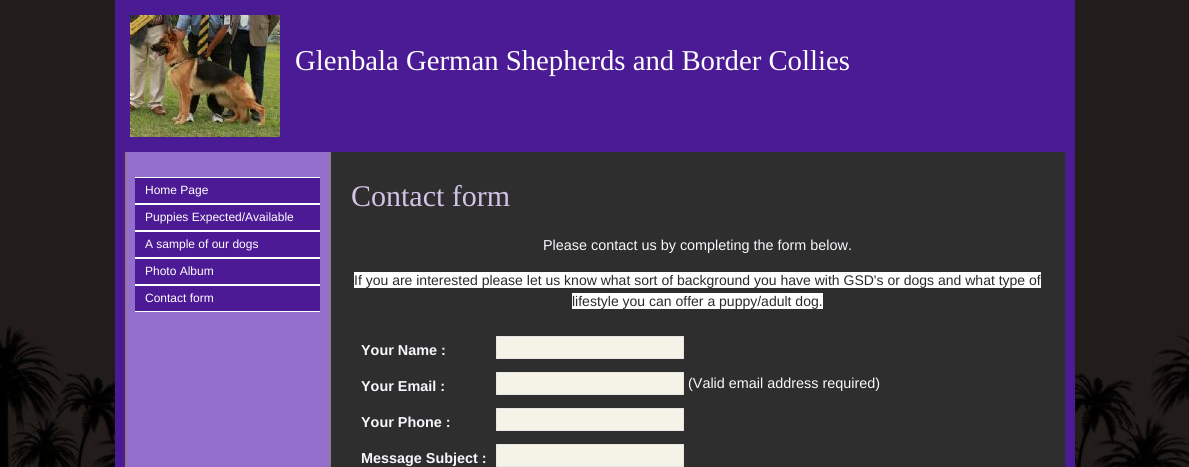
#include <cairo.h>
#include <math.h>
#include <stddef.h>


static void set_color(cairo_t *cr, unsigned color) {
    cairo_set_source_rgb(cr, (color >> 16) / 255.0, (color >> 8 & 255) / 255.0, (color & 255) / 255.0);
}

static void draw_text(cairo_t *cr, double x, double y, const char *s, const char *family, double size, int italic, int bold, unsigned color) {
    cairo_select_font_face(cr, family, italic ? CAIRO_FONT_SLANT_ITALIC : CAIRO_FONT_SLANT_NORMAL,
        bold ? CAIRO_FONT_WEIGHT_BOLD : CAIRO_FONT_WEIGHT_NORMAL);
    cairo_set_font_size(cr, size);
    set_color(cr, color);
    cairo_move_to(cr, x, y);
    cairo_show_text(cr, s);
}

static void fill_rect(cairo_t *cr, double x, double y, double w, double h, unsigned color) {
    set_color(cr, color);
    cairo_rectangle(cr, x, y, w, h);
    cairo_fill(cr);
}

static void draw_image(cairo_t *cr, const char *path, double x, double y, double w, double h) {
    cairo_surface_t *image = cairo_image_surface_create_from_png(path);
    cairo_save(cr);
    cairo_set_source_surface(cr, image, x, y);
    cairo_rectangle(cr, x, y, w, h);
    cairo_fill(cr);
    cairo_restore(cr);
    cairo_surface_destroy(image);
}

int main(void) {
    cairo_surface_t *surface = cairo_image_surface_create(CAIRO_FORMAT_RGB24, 1189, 467);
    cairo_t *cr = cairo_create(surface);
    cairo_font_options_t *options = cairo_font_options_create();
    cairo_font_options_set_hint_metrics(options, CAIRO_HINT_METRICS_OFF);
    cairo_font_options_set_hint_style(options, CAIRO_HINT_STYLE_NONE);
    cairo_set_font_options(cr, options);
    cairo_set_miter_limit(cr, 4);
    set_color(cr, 0x221D1B);
    cairo_paint(cr);
    draw_image(cr, "assets/img1.png", 0, 326, 1189, 141);
    fill_rect(cr, 115, 0, 960, 152, 0x4B1A95);
    draw_image(cr, "assets/img2.png", 130, 15, 150, 122);
    draw_text(cr, 295, 70, "Glenbala German Shepherds and Border Collies", "Liberation Serif", 28.75, 0, 0, 0xFFFFFF);
    draw_image(cr, "assets/img3.png", 115, 152, 960, 315);
    fill_rect(cr, 135, 178, 185, 133, 0x4C1A95);
    fill_rect(cr, 135, 177, 185, 1, 0xFFFFFF);
    fill_rect(cr, 135, 203, 185, 2, 0xFFFFFF);
    draw_text(cr, 145, 194, "Home Page", "Liberation Sans", 12, 0, 0, 0xFFFFFF);
    fill_rect(cr, 135, 230, 185, 2, 0xFFFFFF);
    draw_text(cr, 145, 221, "Puppies Expected/Available", "Liberation Sans", 12, 0, 0, 0xFFFFFF);
    fill_rect(cr, 135, 257, 185, 2, 0xFFFFFF);
    draw_text(cr, 145, 248, "A sample of our dogs", "Liberation Sans", 12, 0, 0, 0xFFFFFF);
    fill_rect(cr, 135, 284, 185, 2, 0xFFFFFF);
    draw_text(cr, 145, 275, "Photo Album", "Liberation Sans", 12, 0, 0, 0xFFFFFF);
    fill_rect(cr, 135, 311, 185, 1, 0xFFFFFF);
    draw_text(cr, 145, 302, "Contact form", "Liberation Sans", 12, 0, 0, 0xFFFFFF);
    fill_rect(cr, 331, 152, 734, 315, 0x2E2E2E);
    draw_text(cr, 351, 206, "Contact form", "Liberation Serif", 30, 0, 0, 0xD2C3E9);
    draw_text(cr, 543, 250, "Please contact us by completing the form below.", "Liberation Sans", 14.4, 0, 0, 0xF9F7FD);
    fill_rect(cr, 354, 272, 687, 16, 0xFFFFFF);
    draw_text(cr, 354, 285, "If you are interested please let us know what sort of background you have with GSD's or dogs and what type of", "Liberation Sans", 14, 0, 0, 0x292929);
    fill_rect(cr, 572, 293, 251, 16, 0xFFFFFF);
    draw_text(cr, 572, 306, "lifestyle you can offer a puppy/adult dog.", "Liberation Sans", 14, 0, 0, 0x292929);
    draw_text(cr, 361, 355, "Your Name :", "Liberation Sans", 14.4, 0, 1, 0xF9F7FD);
    set_color(cr, 0xF5F3E7);
    cairo_rectangle(cr, 496.5, 336.5, 187, 22);
    cairo_fill_preserve(cr);
    set_color(cr, 0xE5E5E5);
    cairo_set_line_width(cr, 1);
    cairo_stroke(cr);
    draw_text(cr, 361, 391, "Your Email :", "Liberation Sans", 14.4, 0, 1, 0xF9F7FD);
    set_color(cr, 0xF5F3E7);
    cairo_rectangle(cr, 496.5, 372.5, 187, 22);
    cairo_fill_preserve(cr);
    set_color(cr, 0xE5E5E5);
    cairo_stroke(cr);
    draw_text(cr, 688, 388, "(Valid email address required)", "Liberation Sans", 14.4, 0, 0, 0xF9F7FD);
    draw_text(cr, 361, 427, "Your Phone :", "Liberation Sans", 14.4, 0, 1, 0xF9F7FD);
    set_color(cr, 0xF5F3E7);
    cairo_rectangle(cr, 496.5, 408.5, 187, 22);
    cairo_fill_preserve(cr);
    set_color(cr, 0xE5E5E5);
    cairo_stroke(cr);
    draw_text(cr, 361, 463, "Message Subject :", "Liberation Sans", 14.4, 0, 1, 0xF9F7FD);
    set_color(cr, 0xF5F3E7);
    cairo_rectangle(cr, 496.5, 444.5, 187, 22);
    cairo_fill_preserve(cr);
    set_color(cr, 0xE5E5E5);
    cairo_stroke(cr);
    cairo_surface_write_to_png(surface, "output.png");
    cairo_font_options_destroy(options);
    cairo_destroy(cr);
    cairo_surface_destroy(surface);
    return 0;
}
